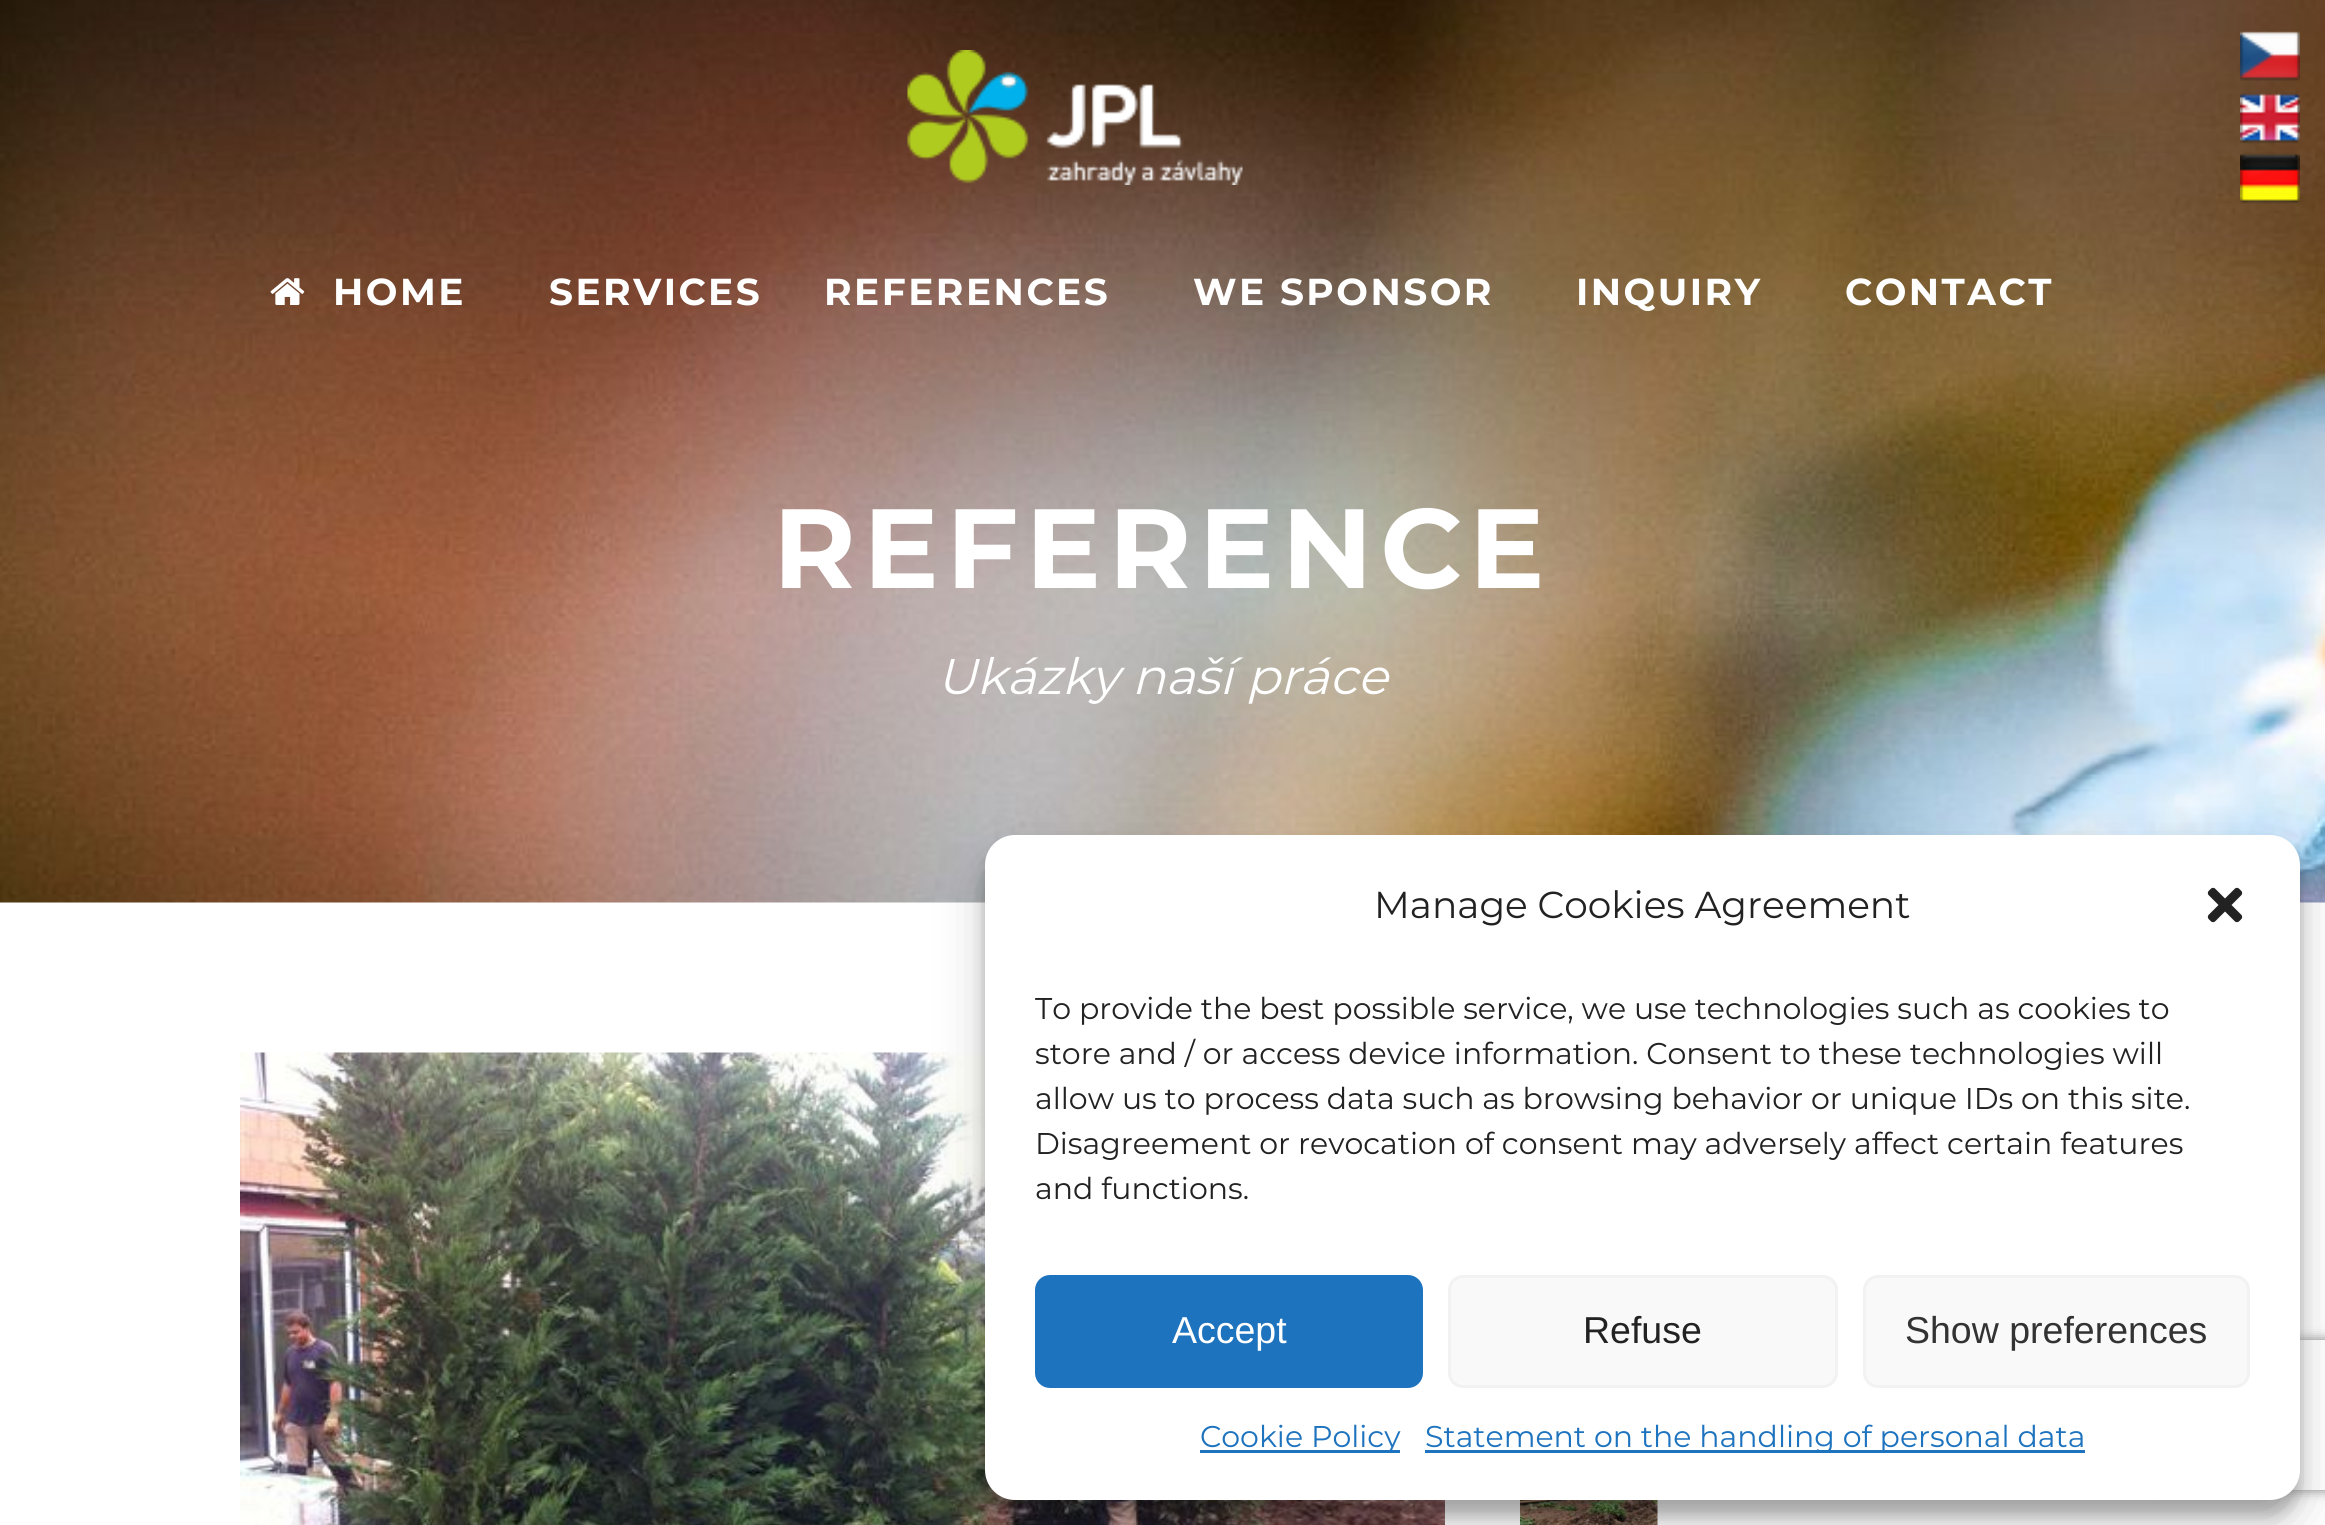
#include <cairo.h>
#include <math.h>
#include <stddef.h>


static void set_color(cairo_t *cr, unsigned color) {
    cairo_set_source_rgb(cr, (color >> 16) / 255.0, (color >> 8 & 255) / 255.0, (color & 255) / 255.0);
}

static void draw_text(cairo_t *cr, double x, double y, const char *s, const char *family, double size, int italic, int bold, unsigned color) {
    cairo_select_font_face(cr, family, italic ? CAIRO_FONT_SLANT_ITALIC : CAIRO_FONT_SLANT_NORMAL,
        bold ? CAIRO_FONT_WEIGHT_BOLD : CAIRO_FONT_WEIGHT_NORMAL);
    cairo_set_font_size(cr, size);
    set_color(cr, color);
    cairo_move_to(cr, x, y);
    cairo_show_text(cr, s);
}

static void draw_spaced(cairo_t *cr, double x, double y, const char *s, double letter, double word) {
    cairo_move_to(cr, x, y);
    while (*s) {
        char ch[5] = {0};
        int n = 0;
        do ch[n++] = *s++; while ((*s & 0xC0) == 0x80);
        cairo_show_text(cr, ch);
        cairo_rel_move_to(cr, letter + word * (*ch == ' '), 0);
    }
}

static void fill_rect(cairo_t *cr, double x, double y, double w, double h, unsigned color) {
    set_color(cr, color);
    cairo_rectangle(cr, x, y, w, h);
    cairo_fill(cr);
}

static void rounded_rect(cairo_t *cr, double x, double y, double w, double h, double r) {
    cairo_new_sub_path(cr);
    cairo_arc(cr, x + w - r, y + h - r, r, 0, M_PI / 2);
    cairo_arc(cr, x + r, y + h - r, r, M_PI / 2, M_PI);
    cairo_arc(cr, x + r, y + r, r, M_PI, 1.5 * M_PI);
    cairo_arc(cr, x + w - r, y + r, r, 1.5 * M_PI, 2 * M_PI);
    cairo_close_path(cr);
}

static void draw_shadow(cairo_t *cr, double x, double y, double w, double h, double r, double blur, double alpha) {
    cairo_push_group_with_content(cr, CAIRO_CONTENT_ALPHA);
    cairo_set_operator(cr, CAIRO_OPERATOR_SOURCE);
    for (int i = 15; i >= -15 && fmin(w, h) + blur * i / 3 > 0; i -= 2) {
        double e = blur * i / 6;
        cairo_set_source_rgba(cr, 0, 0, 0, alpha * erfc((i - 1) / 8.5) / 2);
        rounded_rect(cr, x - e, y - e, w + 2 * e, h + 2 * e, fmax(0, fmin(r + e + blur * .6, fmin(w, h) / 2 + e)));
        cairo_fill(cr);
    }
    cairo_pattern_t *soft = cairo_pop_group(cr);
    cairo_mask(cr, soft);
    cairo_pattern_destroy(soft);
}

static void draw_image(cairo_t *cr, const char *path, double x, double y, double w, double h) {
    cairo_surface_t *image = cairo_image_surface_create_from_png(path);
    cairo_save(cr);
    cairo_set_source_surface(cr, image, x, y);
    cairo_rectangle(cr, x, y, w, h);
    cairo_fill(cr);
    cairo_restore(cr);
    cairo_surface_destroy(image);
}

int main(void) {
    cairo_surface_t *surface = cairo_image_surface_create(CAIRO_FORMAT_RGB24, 2325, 1525);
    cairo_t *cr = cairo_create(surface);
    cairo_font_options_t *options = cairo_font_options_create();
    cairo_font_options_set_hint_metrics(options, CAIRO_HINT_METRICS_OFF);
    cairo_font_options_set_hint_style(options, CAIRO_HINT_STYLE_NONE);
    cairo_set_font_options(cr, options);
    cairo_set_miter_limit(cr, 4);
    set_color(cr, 0xFFFFFF);
    cairo_paint(cr);
    draw_image(cr, "assets/img6.png", 0, 0, 2325, 903);
    draw_image(cr, "assets/img1.png", 2240, 31, 60, 50);
    draw_image(cr, "assets/img2.png", 2240, 92, 60, 52);
    draw_image(cr, "assets/img3.png", 2240, 152, 60, 52);
    draw_image(cr, "assets/img4.png", 907, 50, 336, 135);
    draw_image(cr, "assets/img5.png", 270, 278, 35, 27);
    cairo_select_font_face(cr, "Montserrat", CAIRO_FONT_SLANT_NORMAL, CAIRO_FONT_WEIGHT_BOLD);
    cairo_set_font_size(cr, 37.5);
    set_color(cr, 0xFFFFFF);
    draw_spaced(cr, 333, 305, "HOME", 2.5, 0);
    draw_spaced(cr, 549, 305, "SERVICES", 2.5, 0);
    draw_spaced(cr, 824, 305, "REFERENCES", 2.5, 0);
    draw_spaced(cr, 1193, 305, "WE SPONSOR", 2.5, 0);
    draw_spaced(cr, 1576, 305, "INQUIRY", 2.5, 0);
    draw_spaced(cr, 1845, 305, "CONTACT", 2.5, 0);
    cairo_set_font_size(cr, 112.5);
    draw_spaced(cr, 773, 588, "REFERENCE", 7.5, 0);
    draw_text(cr, 937, 694, "Ukázky naší práce", "Montserrat", 50, 1, 0, 0xFFFFFF);
    draw_image(cr, "assets/img7.png", 240, 1052, 1205, 473);
    draw_image(cr, "assets/img8.png", 1520, 1500, 138, 25);
    set_color(cr, 0x000000);
    draw_shadow(cr, 985, 850, 1315, 665, 30, 7.5, 0.23);
    draw_shadow(cr, 985, 860, 1315, 665, 30, 25, 0.19);
    cairo_save(cr);
    cairo_set_fill_rule(cr, CAIRO_FILL_RULE_EVEN_ODD);
    cairo_new_path(cr);
    cairo_move_to(cr, 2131, 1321);
    cairo_line_to(cr, 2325, 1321);
    cairo_line_to(cr, 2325, 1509);
    cairo_line_to(cr, 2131, 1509);
    cairo_close_path(cr);
    cairo_move_to(cr, 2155, 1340);
    cairo_line_to(cr, 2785, 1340);
    cairo_curve_to(cr, 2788, 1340, 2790, 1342, 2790, 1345);
    cairo_line_to(cr, 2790, 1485);
    cairo_curve_to(cr, 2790, 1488, 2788, 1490, 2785, 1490);
    cairo_line_to(cr, 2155, 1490);
    cairo_curve_to(cr, 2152, 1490, 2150, 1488, 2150, 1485);
    cairo_line_to(cr, 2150, 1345);
    cairo_curve_to(cr, 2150, 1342, 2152, 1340, 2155, 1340);
    cairo_close_path(cr);
    cairo_clip(cr);
    set_color(cr, 0x808080);
    draw_shadow(cr, 2150, 1340, 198, 150, 5, 6, 1);
    cairo_restore(cr);
    set_color(cr, 0xFFFFFF);
    rounded_rect(cr, 985, 835, 1315, 665, 30);
    cairo_fill(cr);
    draw_text(cr, 1374, 918, "Manage Cookies Agreement", "Montserrat", 37.5, 0, 0, 0x222222);
    draw_image(cr, "assets/img9.png", 2207, 887, 36, 36);
    draw_text(cr, 1035, 1019, "To provide the best possible service, we use technologies such as cookies to", "Montserrat", 30, 0, 0, 0x222222);
    draw_text(cr, 1035, 1064, "store and / or access device information. Consent to these technologies will", "Montserrat", 30, 0, 0, 0x222222);
    draw_text(cr, 1035, 1109, "allow us to process data such as browsing behavior or unique IDs on this site.", "Montserrat", 30, 0, 0, 0x222222);
    draw_text(cr, 1035, 1154, "Disagreement or revocation of consent may adversely affect certain features", "Montserrat", 30, 0, 0, 0x222222);
    draw_text(cr, 1035, 1199, "and functions.", "Montserrat", 30, 0, 0, 0x222222);
    set_color(cr, 0x1E73BE);
    rounded_rect(cr, 1036.5, 1276.5, 385, 110, 13.5);
    cairo_fill_preserve(cr);
    cairo_set_line_width(cr, 3);
    cairo_stroke(cr);
    draw_text(cr, 1172, 1343, "Accept", "Liberation Sans", 37.5, 0, 0, 0xFFFFFF);
    set_color(cr, 0xF9F9F9);
    rounded_rect(cr, 1449.5, 1276.5, 387, 110, 13.5);
    cairo_fill_preserve(cr);
    set_color(cr, 0xF2F2F2);
    cairo_stroke(cr);
    draw_text(cr, 1583, 1343, "Refuse", "Liberation Sans", 37.5, 0, 0, 0x222222);
    set_color(cr, 0xF9F9F9);
    rounded_rect(cr, 1864.5, 1276.5, 384, 110, 13.5);
    cairo_fill_preserve(cr);
    set_color(cr, 0xF2F2F2);
    cairo_stroke(cr);
    draw_text(cr, 1905, 1343, "Show preferences", "Liberation Sans", 37.5, 0, 0, 0x333333);
    fill_rect(cr, 1200, 1450, 200, 3, 0x1E73BE);
    draw_text(cr, 1200, 1447, "Cookie Policy", "Montserrat", 30, 0, 0, 0x1E73BE);
    fill_rect(cr, 1425, 1450, 660, 3, 0x1E73BE);
    draw_text(cr, 1425, 1447, "Statement on the handling of personal data", "Montserrat", 30, 0, 0, 0x1E73BE);
    cairo_surface_write_to_png(surface, "output.png");
    cairo_font_options_destroy(options);
    cairo_destroy(cr);
    cairo_surface_destroy(surface);
    return 0;
}
